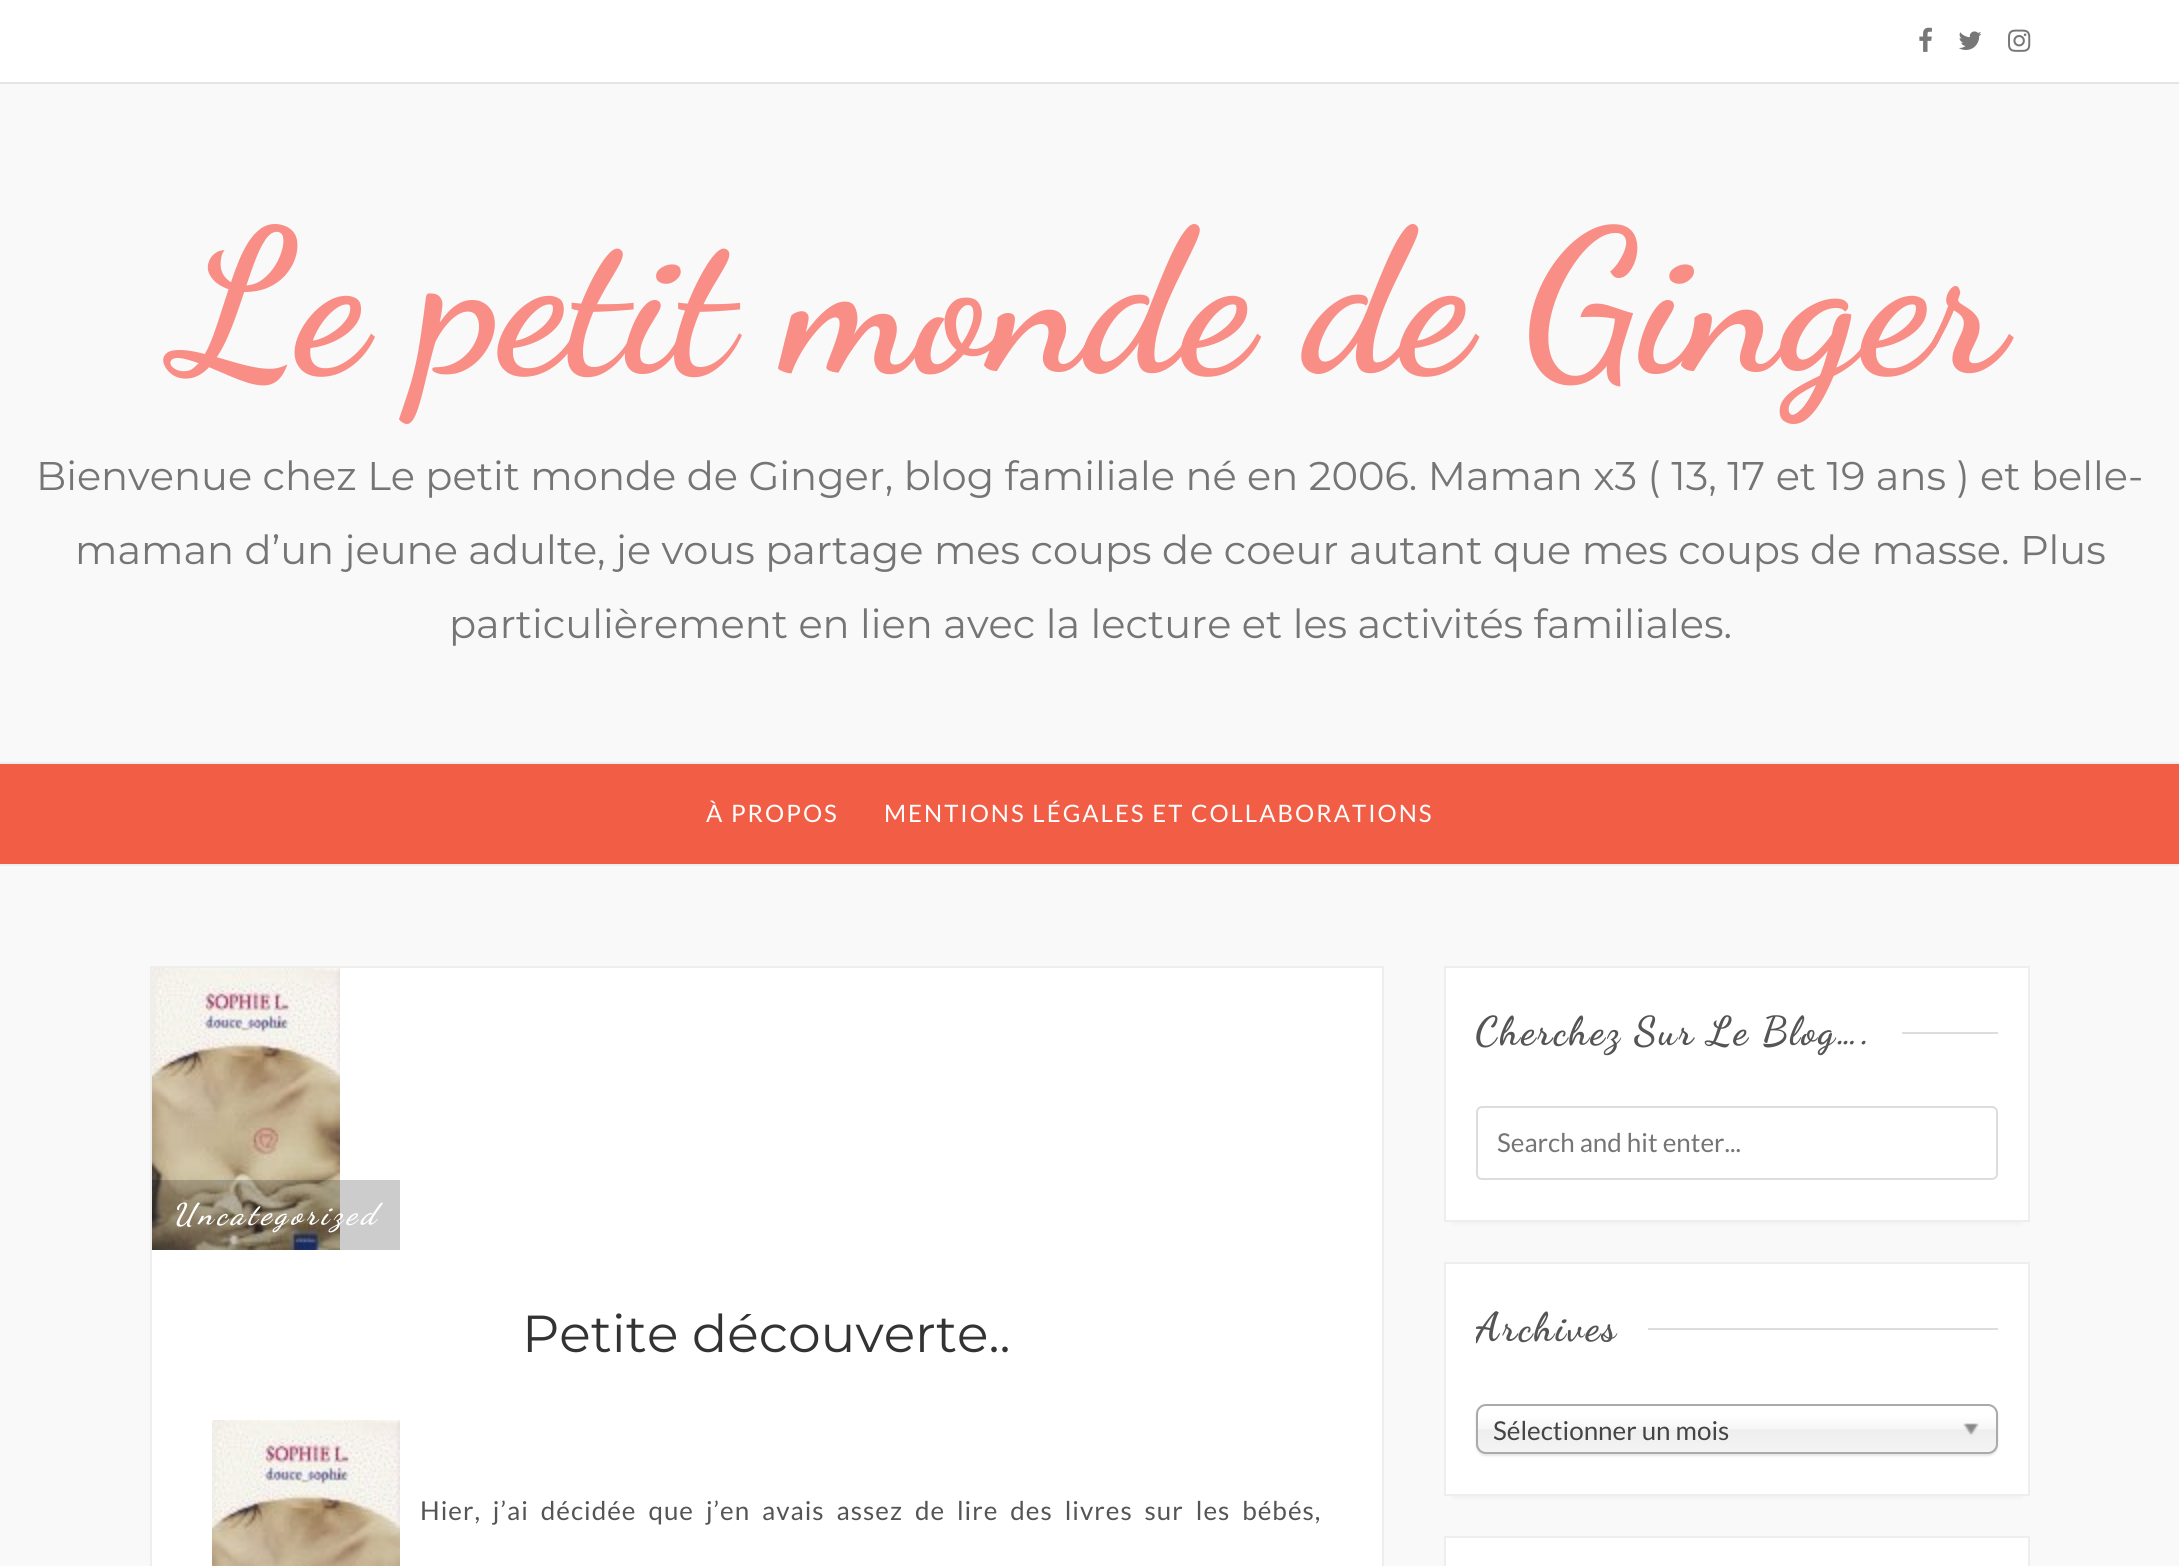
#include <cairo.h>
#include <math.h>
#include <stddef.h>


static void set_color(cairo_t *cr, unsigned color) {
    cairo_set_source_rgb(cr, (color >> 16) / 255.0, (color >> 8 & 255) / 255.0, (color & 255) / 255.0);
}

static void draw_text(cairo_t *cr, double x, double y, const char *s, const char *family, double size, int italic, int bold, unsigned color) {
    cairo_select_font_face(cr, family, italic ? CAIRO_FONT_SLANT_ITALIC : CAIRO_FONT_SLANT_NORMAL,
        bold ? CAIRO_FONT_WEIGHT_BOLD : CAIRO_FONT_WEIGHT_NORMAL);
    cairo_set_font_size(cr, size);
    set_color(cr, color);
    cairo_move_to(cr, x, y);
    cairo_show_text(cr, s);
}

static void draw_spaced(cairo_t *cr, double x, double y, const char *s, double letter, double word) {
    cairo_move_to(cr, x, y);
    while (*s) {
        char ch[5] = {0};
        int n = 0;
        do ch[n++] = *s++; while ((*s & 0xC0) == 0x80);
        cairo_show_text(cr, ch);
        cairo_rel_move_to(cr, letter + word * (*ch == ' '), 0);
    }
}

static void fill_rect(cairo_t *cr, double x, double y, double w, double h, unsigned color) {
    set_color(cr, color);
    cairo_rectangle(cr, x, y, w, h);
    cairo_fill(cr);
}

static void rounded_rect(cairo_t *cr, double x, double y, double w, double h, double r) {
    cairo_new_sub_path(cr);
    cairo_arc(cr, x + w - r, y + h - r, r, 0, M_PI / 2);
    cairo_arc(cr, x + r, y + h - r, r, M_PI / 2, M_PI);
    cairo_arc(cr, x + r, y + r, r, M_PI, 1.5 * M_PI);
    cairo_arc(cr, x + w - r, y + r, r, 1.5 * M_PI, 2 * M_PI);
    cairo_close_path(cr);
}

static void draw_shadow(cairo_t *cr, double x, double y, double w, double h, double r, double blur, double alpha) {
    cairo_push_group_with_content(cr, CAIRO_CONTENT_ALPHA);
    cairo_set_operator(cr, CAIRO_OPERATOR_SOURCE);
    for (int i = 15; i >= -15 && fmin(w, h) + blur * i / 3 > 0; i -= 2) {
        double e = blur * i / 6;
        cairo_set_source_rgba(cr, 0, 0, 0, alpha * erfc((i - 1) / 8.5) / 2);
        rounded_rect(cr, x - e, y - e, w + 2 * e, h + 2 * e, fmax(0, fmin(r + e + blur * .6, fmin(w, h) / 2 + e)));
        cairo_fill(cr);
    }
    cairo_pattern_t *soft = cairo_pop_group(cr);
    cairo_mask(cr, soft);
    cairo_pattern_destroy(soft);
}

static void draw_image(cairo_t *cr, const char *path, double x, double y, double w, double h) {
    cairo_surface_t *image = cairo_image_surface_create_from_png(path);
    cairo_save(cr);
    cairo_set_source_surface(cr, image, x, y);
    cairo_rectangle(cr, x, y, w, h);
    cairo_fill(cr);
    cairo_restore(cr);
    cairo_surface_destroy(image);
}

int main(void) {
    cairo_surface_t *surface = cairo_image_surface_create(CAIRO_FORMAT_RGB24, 2179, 1566);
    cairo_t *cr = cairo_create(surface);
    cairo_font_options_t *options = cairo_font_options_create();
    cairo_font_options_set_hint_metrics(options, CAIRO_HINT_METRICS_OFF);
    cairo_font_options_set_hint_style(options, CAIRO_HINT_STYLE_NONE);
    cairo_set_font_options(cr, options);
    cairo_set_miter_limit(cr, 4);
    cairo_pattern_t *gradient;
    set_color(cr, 0xF9F9F9);
    cairo_paint(cr);
    fill_rect(cr, 0, 0, 2179, 82, 0xFFFFFF);
    fill_rect(cr, 0, 82, 2179, 2, 0xE5E5E5);
    draw_image(cr, "assets/img1.png", 1919, 27, 13, 25);
    draw_image(cr, "assets/img2.png", 1959, 31, 23, 19);
    draw_image(cr, "assets/img3.png", 2008, 29, 23, 23);
    draw_text(cr, 176, 368, "Le petit monde de Ginger", "Dancing Script", 200, 0, 1, 0xF88E86);
    draw_text(cr, 36, 490, "Bienvenue chez Le petit monde de Ginger, blog familiale né en 2006. Maman x3 ( 13, 17 et 19 ans ) et belle-", "Montserrat", 40, 0, 0, 0x757575);
    draw_text(cr, 75, 564, "maman d’un jeune adulte, je vous partage mes coups de coeur autant que mes coups de masse. Plus", "Montserrat", 40, 0, 0, 0x757575);
    draw_text(cr, 449, 638, "particulièrement en lien avec la lecture et les activités familiales.", "Montserrat", 40, 0, 0, 0x757575);
    fill_rect(cr, 0, 764, 2179, 100, 0xF25D46);
    fill_rect(cr, 0, 762, 2179, 2, 0xEEEEEE);
    fill_rect(cr, 0, 864, 2179, 2, 0xEEEEEE);
    cairo_select_font_face(cr, "Lato", CAIRO_FONT_SLANT_NORMAL, CAIRO_FONT_WEIGHT_NORMAL);
    cairo_set_font_size(cr, 24);
    set_color(cr, 0xFFFFFF);
    draw_spaced(cr, 706, 822, "À PROPOS", 2, 0);
    draw_spaced(cr, 884, 822, "MENTIONS LÉGALES ET COLLABORATIONS", 2, 0);
    cairo_rectangle(cr, 151, 967, 1232, 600);
    cairo_fill_preserve(cr);
    set_color(cr, 0xEEEEEE);
    cairo_stroke(cr);
    draw_image(cr, "assets/img4.png", 152, 968, 188, 282);
    cairo_set_source_rgba(cr, 0, 0, 0, 0.2);
    cairo_rectangle(cr, 152, 1180, 248, 70);
    cairo_fill(cr);
    cairo_select_font_face(cr, "Dancing Script", CAIRO_FONT_SLANT_ITALIC, CAIRO_FONT_WEIGHT_BOLD);
    cairo_set_font_size(cr, 30);
    set_color(cr, 0xFFFFFF);
    draw_spaced(cr, 172, 1224, "Uncategorized", 4, 0);
    draw_text(cr, 522, 1352, "Petite découverte..", "Montserrat", 52, 0, 0, 0x333333);
    draw_image(cr, "assets/img5.png", 212, 1420, 188, 146);
    cairo_select_font_face(cr, "Lato", CAIRO_FONT_SLANT_NORMAL, CAIRO_FONT_WEIGHT_NORMAL);
    cairo_set_font_size(cr, 26);
    set_color(cr, 0x555555);
    draw_spaced(cr, 420, 1520, "Hier, j’ai décidée que j’en avais assez de lire des livres sur les bébés,", 1, 5.9);
    set_color(cr, 0xBEBEBE);
    draw_shadow(cr, 1454, 986, 566, 236, 0, 3, 0.3);
    set_color(cr, 0xFFFFFF);
    cairo_rectangle(cr, 1445, 967, 584, 254);
    cairo_fill_preserve(cr);
    set_color(cr, 0xEEEEEE);
    cairo_stroke(cr);
    cairo_select_font_face(cr, "Dancing Script", CAIRO_FONT_SLANT_NORMAL, CAIRO_FONT_WEIGHT_BOLD);
    cairo_set_font_size(cr, 40);
    set_color(cr, 0x555555);
    draw_spaced(cr, 1475, 1044, "Cherchez Sur Le Blog….", 2, 0);
    fill_rect(cr, 1902, 1032, 96, 2, 0xDDDDDD);
    rounded_rect(cr, 1477, 1107, 520, 72, 5);
    cairo_stroke(cr);
    draw_text(cr, 1497, 1152, "Search and hit enter...", "Lato", 26, 0, 0, 0x757575);
    set_color(cr, 0xBEBEBE);
    draw_shadow(cr, 1454, 1282, 566, 214, 0, 3, 0.3);
    set_color(cr, 0xFFFFFF);
    cairo_rectangle(cr, 1445, 1263, 584, 232);
    cairo_fill_preserve(cr);
    set_color(cr, 0xEEEEEE);
    cairo_stroke(cr);
    cairo_save(cr);
    cairo_rectangle(cr, 1476, 1304, 522, 48);
    cairo_clip(cr);
    cairo_select_font_face(cr, "Dancing Script", CAIRO_FONT_SLANT_NORMAL, CAIRO_FONT_WEIGHT_BOLD);
    cairo_set_font_size(cr, 40);
    set_color(cr, 0x555555);
    draw_spaced(cr, 1475, 1340, "Archives", 2, 0);
    cairo_restore(cr);
    fill_rect(cr, 1648, 1328, 350, 2, 0xDDDDDD);
    set_color(cr, 0x000000);
    draw_shadow(cr, 1476, 1406, 522, 50, 10, 1, 0.1);
    gradient = cairo_pattern_create_linear(1737, 1406, 1737, 1452);
    cairo_pattern_add_color_stop_rgba(gradient, 0.2, 1, 1, 1, 1);
    cairo_pattern_add_color_stop_rgba(gradient, 0.5, 0.965, 0.965, 0.965, 1);
    cairo_pattern_add_color_stop_rgba(gradient, 0.52, 0.933, 0.933, 0.933, 1);
    cairo_pattern_add_color_stop_rgba(gradient, 1, 0.957, 0.957, 0.957, 1);
    cairo_set_source(cr, gradient);
    cairo_pattern_destroy(gradient);
    rounded_rect(cr, 1478, 1406, 518, 46, 8);
    cairo_fill(cr);
    rounded_rect(cr, 1477, 1405, 520, 48, 9);
    set_color(cr, 0xAAAAAA);
    cairo_stroke(cr);
    draw_text(cr, 1493, 1440, "Sélectionner un mois", "Lato", 26, 0, 0, 0x444444);
    draw_image(cr, "assets/img6.png", 1963, 1423, 16, 12);
    set_color(cr, 0xFFFFFF);
    cairo_rectangle(cr, 1445, 1537, 584, 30);
    cairo_fill_preserve(cr);
    set_color(cr, 0xEEEEEE);
    cairo_stroke(cr);
    cairo_surface_write_to_png(surface, "output.png");
    cairo_font_options_destroy(options);
    cairo_destroy(cr);
    cairo_surface_destroy(surface);
    return 0;
}
